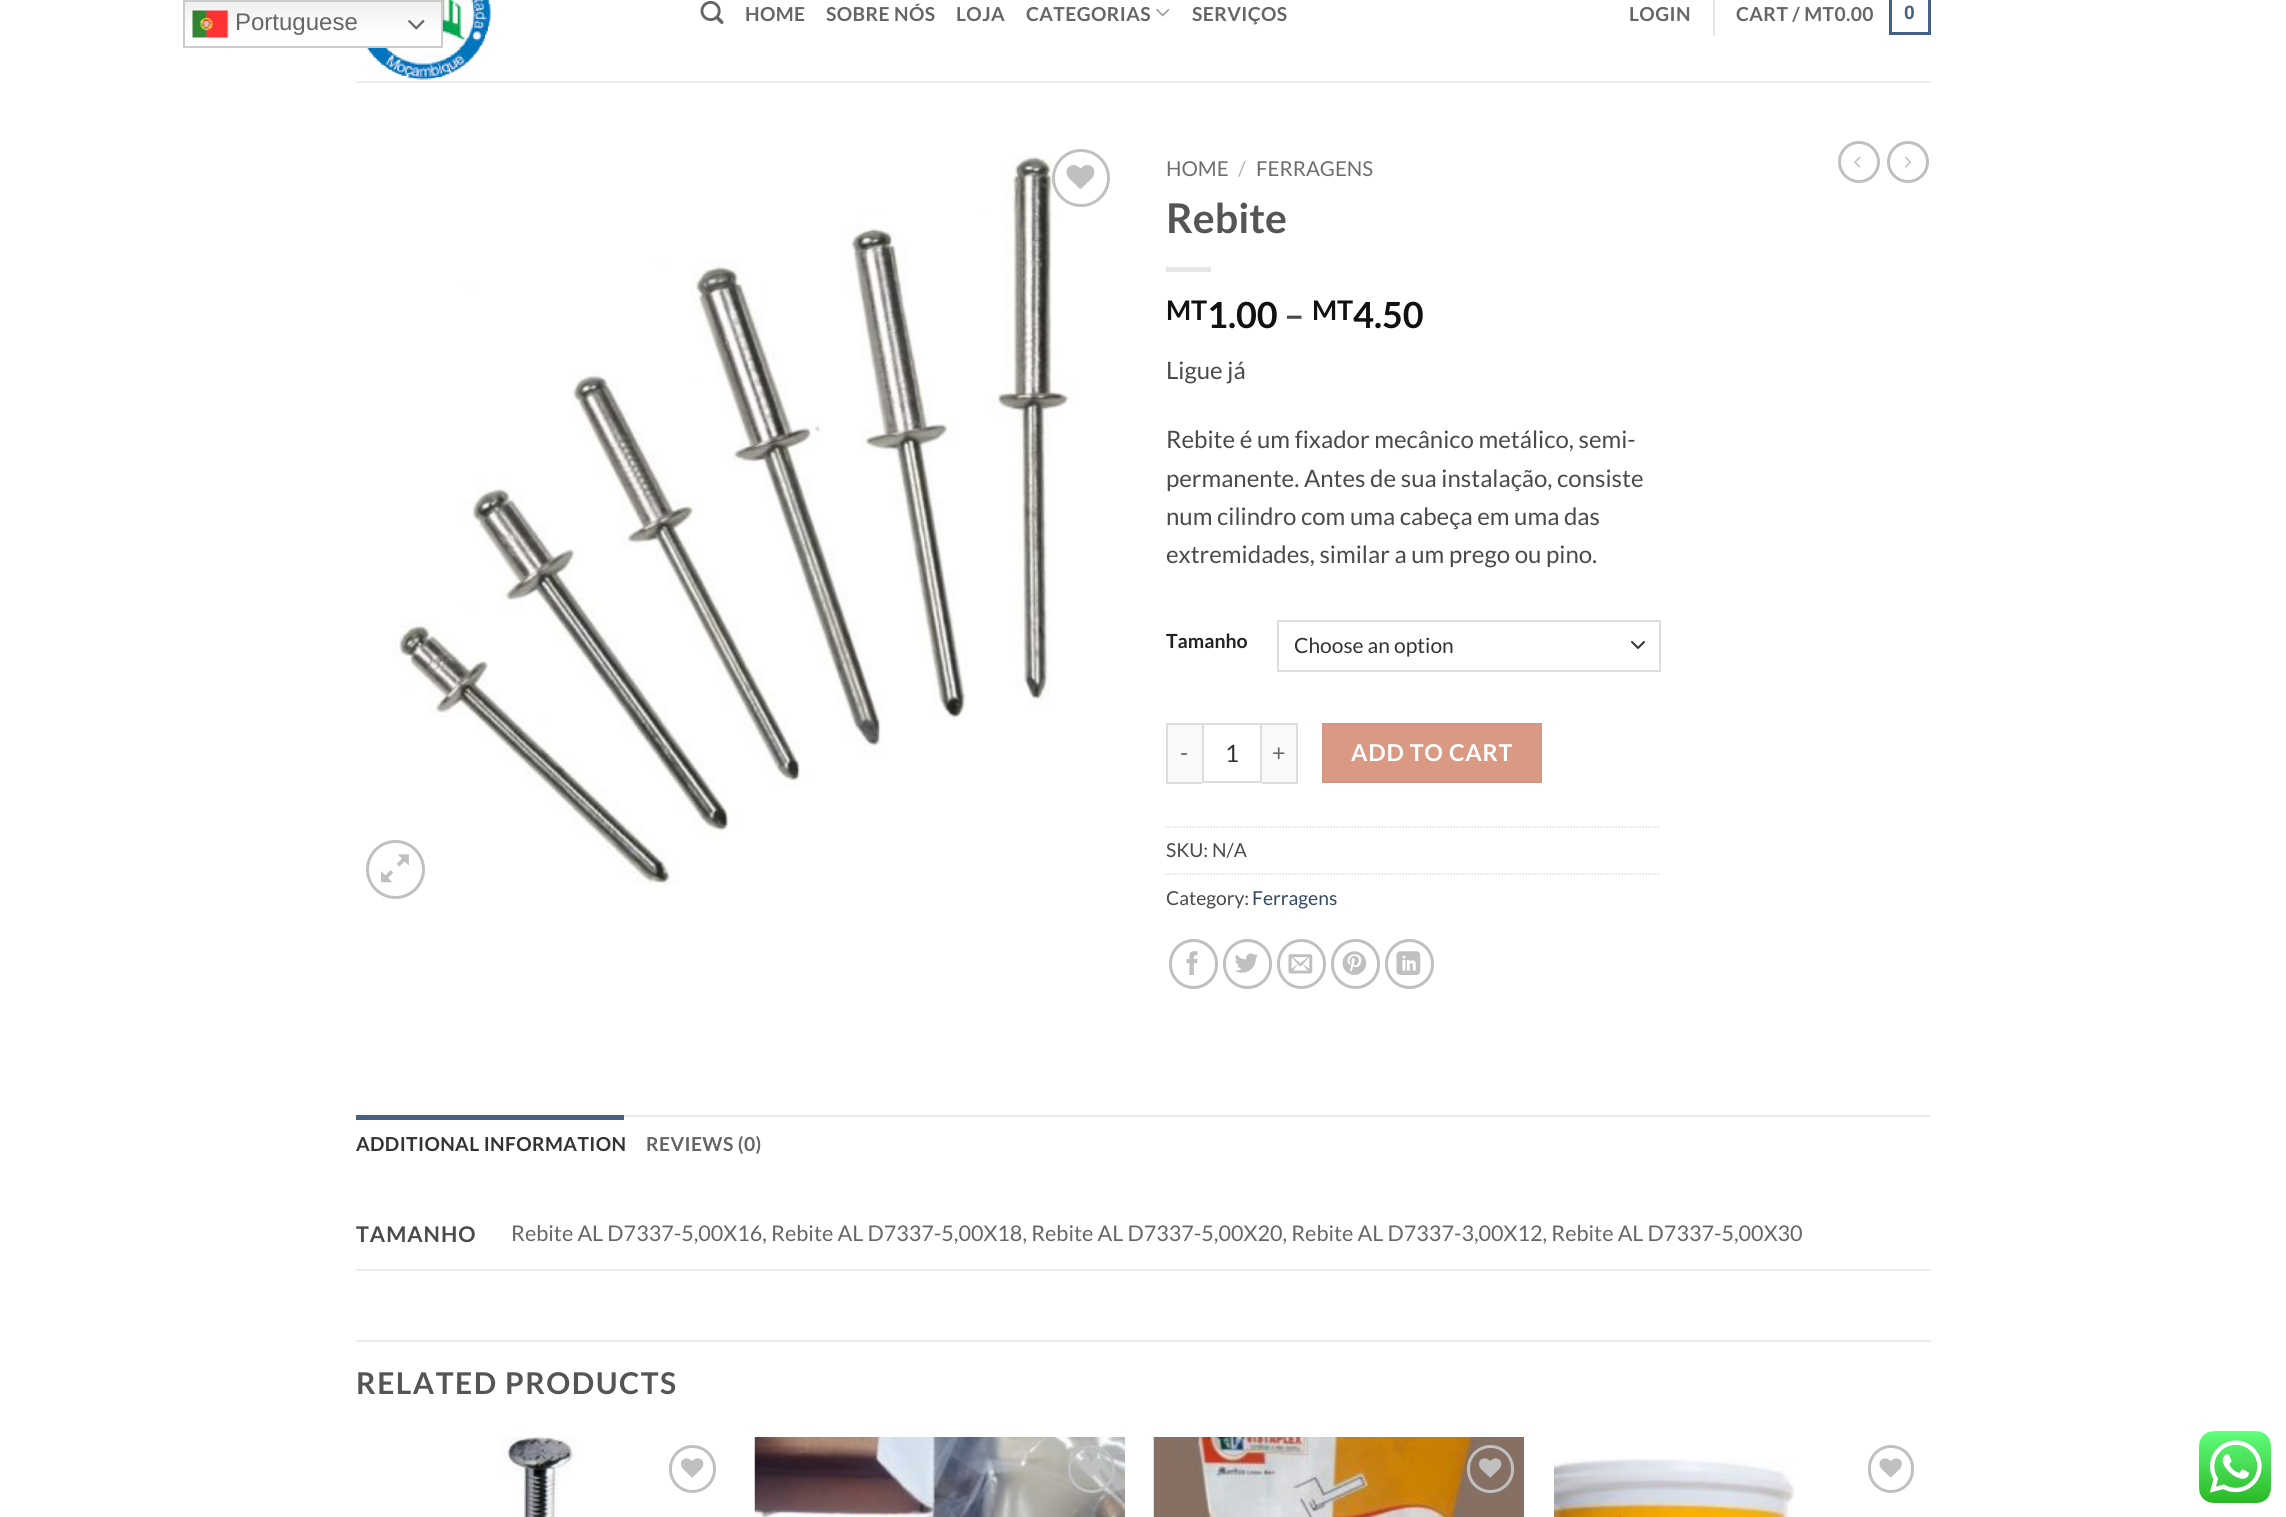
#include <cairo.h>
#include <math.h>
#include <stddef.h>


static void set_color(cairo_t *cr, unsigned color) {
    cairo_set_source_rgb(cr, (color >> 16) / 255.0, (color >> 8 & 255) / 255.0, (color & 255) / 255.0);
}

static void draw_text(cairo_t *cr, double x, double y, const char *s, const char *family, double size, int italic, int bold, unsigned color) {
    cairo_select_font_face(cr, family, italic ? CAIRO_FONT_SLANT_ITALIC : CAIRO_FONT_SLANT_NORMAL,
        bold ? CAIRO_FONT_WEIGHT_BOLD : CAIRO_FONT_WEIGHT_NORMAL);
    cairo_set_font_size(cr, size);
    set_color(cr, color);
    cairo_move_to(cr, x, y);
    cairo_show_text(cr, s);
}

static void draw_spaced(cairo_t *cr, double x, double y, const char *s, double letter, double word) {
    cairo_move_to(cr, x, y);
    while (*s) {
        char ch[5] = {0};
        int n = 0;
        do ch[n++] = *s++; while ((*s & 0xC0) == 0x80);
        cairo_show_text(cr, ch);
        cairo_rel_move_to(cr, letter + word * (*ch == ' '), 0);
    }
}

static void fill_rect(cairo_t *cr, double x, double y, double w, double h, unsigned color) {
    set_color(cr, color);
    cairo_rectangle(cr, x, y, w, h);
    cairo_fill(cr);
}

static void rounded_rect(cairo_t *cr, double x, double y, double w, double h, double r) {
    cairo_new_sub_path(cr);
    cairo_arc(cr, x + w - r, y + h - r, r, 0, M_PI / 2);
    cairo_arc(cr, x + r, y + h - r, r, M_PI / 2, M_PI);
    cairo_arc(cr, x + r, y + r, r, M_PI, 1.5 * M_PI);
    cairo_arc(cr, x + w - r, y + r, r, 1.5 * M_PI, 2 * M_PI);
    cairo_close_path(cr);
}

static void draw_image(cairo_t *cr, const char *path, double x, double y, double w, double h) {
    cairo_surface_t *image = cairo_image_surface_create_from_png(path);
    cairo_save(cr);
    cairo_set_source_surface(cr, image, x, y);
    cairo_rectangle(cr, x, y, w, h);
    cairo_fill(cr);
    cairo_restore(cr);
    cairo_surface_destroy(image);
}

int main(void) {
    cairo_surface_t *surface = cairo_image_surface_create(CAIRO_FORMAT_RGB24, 2286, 1517);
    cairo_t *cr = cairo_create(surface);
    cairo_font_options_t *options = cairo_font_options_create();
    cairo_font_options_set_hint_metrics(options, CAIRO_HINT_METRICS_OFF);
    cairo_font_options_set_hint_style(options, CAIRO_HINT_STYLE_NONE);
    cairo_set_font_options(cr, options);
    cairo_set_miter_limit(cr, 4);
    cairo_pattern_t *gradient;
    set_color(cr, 0xFFFFFF);
    cairo_paint(cr);
    draw_image(cr, "assets/img3.png", 366, 0, 125, 80);
    gradient = cairo_pattern_create_linear(313, 0, 313, 48);
    cairo_pattern_add_color_stop_rgba(gradient, 0, 0.937, 0.937, 0.937, 1);
    cairo_pattern_add_color_stop_rgba(gradient, 0.7, 1, 1, 1, 1);
    cairo_set_source(cr, gradient);
    cairo_pattern_destroy(gradient);
    cairo_rectangle(cr, 185, 2, 256, 44);
    cairo_fill(cr);
    cairo_rectangle(cr, 184, 1, 258, 46);
    set_color(cr, 0xCCCCCC);
    cairo_stroke(cr);
    draw_image(cr, "assets/img1.png", 192, 10, 37, 28);
    draw_text(cr, 235, 30, "Portuguese", "Liberation Sans", 24, 0, 0, 0x666666);
    draw_image(cr, "assets/img2.png", 408, 20, 17, 10);
    draw_image(cr, "assets/img4.png", 700, 0, 24, 24);
    cairo_select_font_face(cr, "Lato", CAIRO_FONT_SLANT_NORMAL, CAIRO_FONT_WEIGHT_BOLD);
    cairo_set_font_size(cr, 19.25);
    draw_spaced(cr, 745, 21, "HOME", 0.4, 0);
    draw_spaced(cr, 826, 21, "SOBRE NÓS", 0.4, 0);
    draw_spaced(cr, 956, 21, "LOJA", 0.4, 0);
    draw_spaced(cr, 1026, 21, "CATEGORIAS", 0.4, 0);
    draw_image(cr, "assets/img5.png", 1156, 8, 14, 9);
    draw_spaced(cr, 1192, 21, "SERVIÇOS", 0.4, 0);
    draw_spaced(cr, 1629, 21, "LOGIN", 0.4, 0);
    fill_rect(cr, 1713, 0, 2, 36, 0xE6E6E6);
    set_color(cr, 0x666666);
    draw_spaced(cr, 1736, 21, "CART / MT0.00", 0.4, 0);
    cairo_rectangle(cr, 1890.5, -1.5, 39, 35);
    set_color(cr, 0x446084);
    cairo_set_line_width(cr, 3);
    cairo_stroke(cr);
    cairo_select_font_face(cr, "Liberation Sans", CAIRO_FONT_SLANT_NORMAL, CAIRO_FONT_WEIGHT_BOLD);
    draw_spaced(cr, 1904, 19, "0", 0.4, 0);
    fill_rect(cr, 356, 81, 1575, 2, 0xEDEDED);
    draw_image(cr, "assets/img6.png", 392, 155, 682, 730);
    cairo_arc(cr, 1081, 178, 27.5, 0, 2 * M_PI);
    set_color(cr, 0xC0C0C0);
    cairo_stroke(cr);
    draw_image(cr, "assets/img7.png", 1066, 165, 29, 24);
    cairo_arc(cr, 395.5, 869.5, 28, 0, 2 * M_PI);
    cairo_stroke(cr);
    draw_image(cr, "assets/img8.png", 381, 854, 28, 29);
    draw_text(cr, 1166, 176, "HOME", "Lato", 20.5, 0, 0, 0x6E6E6E);
    draw_text(cr, 1238, 176, "/", "Lato", 20.5, 0, 0, 0xB2B2B2);
    draw_text(cr, 1256, 176, "FERRAGENS", "Lato", 20.5, 0, 0, 0x6E6E6E);
    draw_text(cr, 1166, 233, "Rebite", "Lato", 41, 0, 1, 0x555555);
    fill_rect(cr, 1166, 267, 45, 5, 0xE6E6E6);
    draw_text(cr, 1166, 320, "MT", "Lato", 27, 0, 1, 0x111111);
    draw_text(cr, 1207, 328, "1.00", "Lato", 36, 0, 1, 0x111111);
    draw_text(cr, 1284, 328, "–", "Lato", 36, 0, 1, 0x4A4A4A);
    draw_text(cr, 1312, 320, "MT", "Lato", 27, 0, 1, 0x111111);
    draw_text(cr, 1353, 328, "4.50", "Lato", 36, 0, 1, 0x111111);
    draw_text(cr, 1166, 379, "Ligue já", "Lato", 24, 0, 0, 0x4A4A4A);
    draw_text(cr, 1166, 448, "Rebite é um fixador mecânico metálico, semi-", "Lato", 24, 0, 0, 0x4A4A4A);
    draw_text(cr, 1166, 487, "permanente. Antes de sua instalação, consiste", "Lato", 24, 0, 0, 0x4A4A4A);
    draw_text(cr, 1166, 525, "num cilindro com uma cabeça em uma das", "Lato", 24, 0, 0, 0x4A4A4A);
    draw_text(cr, 1166, 563, "extremidades, similar a um prego ou pino.", "Lato", 24, 0, 0, 0x4A4A4A);
    draw_text(cr, 1166, 648, "Tamanho", "Lato", 19.5, 0, 1, 0x222222);
    cairo_new_path(cr);
    cairo_move_to(cr, 1632, 642);
    cairo_line_to(cr, 1638, 648);
    cairo_line_to(cr, 1644, 642);
    set_color(cr, 0x333333);
    cairo_set_line_width(cr, 2);
    cairo_set_line_cap(cr, CAIRO_LINE_CAP_ROUND);
    cairo_set_line_join(cr, CAIRO_LINE_JOIN_ROUND);
    cairo_stroke(cr);
    cairo_rectangle(cr, 1278, 621, 382, 50);
    set_color(cr, 0xDDDDDD);
    cairo_set_line_cap(cr, CAIRO_LINE_CAP_BUTT);
    cairo_set_line_join(cr, CAIRO_LINE_JOIN_MITER);
    cairo_stroke(cr);
    draw_text(cr, 1294, 653, "Choose an option", "Lato", 21, 0, 0, 0x333333);
    fill_rect(cr, 1168, 725, 34, 57, 0xF9F9F9);
    fill_rect(cr, 1166, 723, 36, 2, 0xDDDDDD);
    fill_rect(cr, 1166, 782, 36, 2, 0xDDDDDD);
    fill_rect(cr, 1166, 723, 2, 60, 0xDDDDDD);
    cairo_set_font_size(cr, 23.25);
    set_color(cr, 0x666666);
    draw_spaced(cr, 1180, 761, "-", 0.75, 0);
    cairo_rectangle(cr, 1203, 724, 58, 58);
    set_color(cr, 0xDDDDDD);
    cairo_stroke(cr);
    draw_text(cr, 1225, 762, "1", "Lato", 24, 0, 0, 0x333333);
    fill_rect(cr, 1262, 725, 34, 57, 0xF9F9F9);
    fill_rect(cr, 1262, 723, 36, 2, 0xDDDDDD);
    fill_rect(cr, 1296, 723, 2, 60, 0xDDDDDD);
    fill_rect(cr, 1262, 782, 36, 2, 0xDDDDDD);
    cairo_set_font_size(cr, 23.25);
    set_color(cr, 0x666666);
    draw_spaced(cr, 1272, 761, "+", 0.75, 0);
    set_color(cr, 0xD99983);
    cairo_rectangle(cr, 1323, 724, 218, 58);
    cairo_fill_preserve(cr);
    set_color(cr, 0xD39682);
    cairo_stroke(cr);
    cairo_select_font_face(cr, "Lato", CAIRO_FONT_SLANT_NORMAL, CAIRO_FONT_WEIGHT_BOLD);
    set_color(cr, 0xFFFFFF);
    draw_spaced(cr, 1351, 761, "ADD TO CART", 0.75, 0);
    cairo_new_path(cr);
    cairo_move_to(cr, 1165.5, 827);
    cairo_line_to(cr, 1660.5, 827);
    set_color(cr, 0xDDDDDD);
    cairo_set_line_width(cr, 1.5);
    cairo_set_dash(cr, (double[]){1.5, 1.5}, 2, 0);
    cairo_stroke(cr);
    draw_text(cr, 1166, 857, "SKU: N/A", "Lato", 19.25, 0, 0, 0x4A4A4A);
    cairo_new_path(cr);
    cairo_move_to(cr, 1165.5, 874);
    cairo_line_to(cr, 1660.5, 874);
    set_color(cr, 0xDDDDDD);
    cairo_stroke(cr);
    draw_text(cr, 1166, 905, "Category:", "Lato", 19.25, 0, 0, 0x4A4A4A);
    draw_text(cr, 1252, 905, "Ferragens", "Lato", 19.25, 0, 0, 0x334862);
    rounded_rect(cr, 1170.5, 940.5, 46, 47, 23);
    set_color(cr, 0xC0C0C0);
    cairo_set_line_width(cr, 3);
    cairo_set_dash(cr, NULL, 0, 0);
    cairo_stroke(cr);
    draw_image(cr, "assets/img9.png", 1186, 951, 12, 24);
    rounded_rect(cr, 1224.5, 940.5, 46, 47, 23);
    cairo_stroke(cr);
    draw_image(cr, "assets/img10.png", 1235, 953, 23, 20);
    rounded_rect(cr, 1278.5, 940.5, 46, 47, 23);
    cairo_stroke(cr);
    draw_image(cr, "assets/img11.png", 1288, 954, 25, 20);
    rounded_rect(cr, 1332.5, 940.5, 46, 47, 23);
    cairo_stroke(cr);
    draw_image(cr, "assets/img12.png", 1342, 951, 25, 24);
    rounded_rect(cr, 1386.5, 940.5, 46, 47, 23);
    cairo_stroke(cr);
    draw_image(cr, "assets/img13.png", 1396, 951, 25, 24);
    cairo_arc(cr, 1859, 162, 19.5, 0, 2 * M_PI);
    cairo_stroke(cr);
    draw_image(cr, "assets/img14.png", 1854, 156, 7, 12);
    cairo_arc(cr, 1908, 162, 19.5, 0, 2 * M_PI);
    cairo_stroke(cr);
    draw_image(cr, "assets/img15.png", 1904, 156, 8, 12);
    fill_rect(cr, 624, 1115, 1307, 2, 0xECECEC);
    fill_rect(cr, 356, 1115, 268, 5, 0x446084);
    cairo_select_font_face(cr, "Lato", CAIRO_FONT_SLANT_NORMAL, CAIRO_FONT_WEIGHT_BOLD);
    set_color(cr, 0x333333);
    draw_spaced(cr, 356, 1151, "ADDITIONAL INFORMATION", 0.4, 0);
    set_color(cr, 0x666666);
    draw_spaced(cr, 646, 1151, "REVIEWS (0)", 0.4, 0);
    fill_rect(cr, 356, 1269, 1575, 2, 0xECECEC);
    cairo_set_font_size(cr, 21.6);
    set_color(cr, 0x4A4A4A);
    draw_spaced(cr, 356, 1242, "TAMANHO", 1, 0);
    draw_text(cr, 511, 1241, "Rebite AL D7337-5,00X16, Rebite AL D7337-5,00X18, Rebite AL D7337-5,00X20, Rebite AL D7337-3,00X12, Rebite AL D7337-5,00X30", "Lato", 21.6, 0, 0, 0x666666);
    fill_rect(cr, 356, 1340, 1575, 2, 0xECECEC);
    cairo_select_font_face(cr, "Lato", CAIRO_FONT_SLANT_NORMAL, CAIRO_FONT_WEIGHT_BOLD);
    cairo_set_font_size(cr, 30);
    set_color(cr, 0x555555);
    draw_spaced(cr, 356, 1394, "RELATED PRODUCTS", 1.5, 0);
    draw_image(cr, "assets/img16.png", 499, 1437, 83, 80);
    rounded_rect(cr, 670.5, 1446.5, 44, 45, 22);
    set_color(cr, 0xC0C0C0);
    cairo_stroke(cr);
    draw_image(cr, "assets/img17.png", 681, 1458, 23, 20);
    draw_image(cr, "assets/img18.png", 754, 1437, 371, 80);
    rounded_rect(cr, 1069.5, 1446.5, 44, 45, 22);
    cairo_stroke(cr);
    draw_image(cr, "assets/img19.png", 1080, 1458, 22, 19);
    draw_image(cr, "assets/img20.png", 1153, 1437, 371, 80);
    rounded_rect(cr, 1468.5, 1446.5, 44, 45, 22);
    cairo_stroke(cr);
    draw_image(cr, "assets/img21.png", 1479, 1458, 23, 20);
    draw_image(cr, "assets/img22.png", 1554, 1458, 241, 59);
    rounded_rect(cr, 1869.5, 1446.5, 43, 45, 21.5);
    cairo_stroke(cr);
    draw_image(cr, "assets/img23.png", 1879, 1458, 23, 20);
    draw_image(cr, "assets/img24.png", 2199, 1431, 72, 72);
    cairo_surface_write_to_png(surface, "output.png");
    cairo_font_options_destroy(options);
    cairo_destroy(cr);
    cairo_surface_destroy(surface);
    return 0;
}
